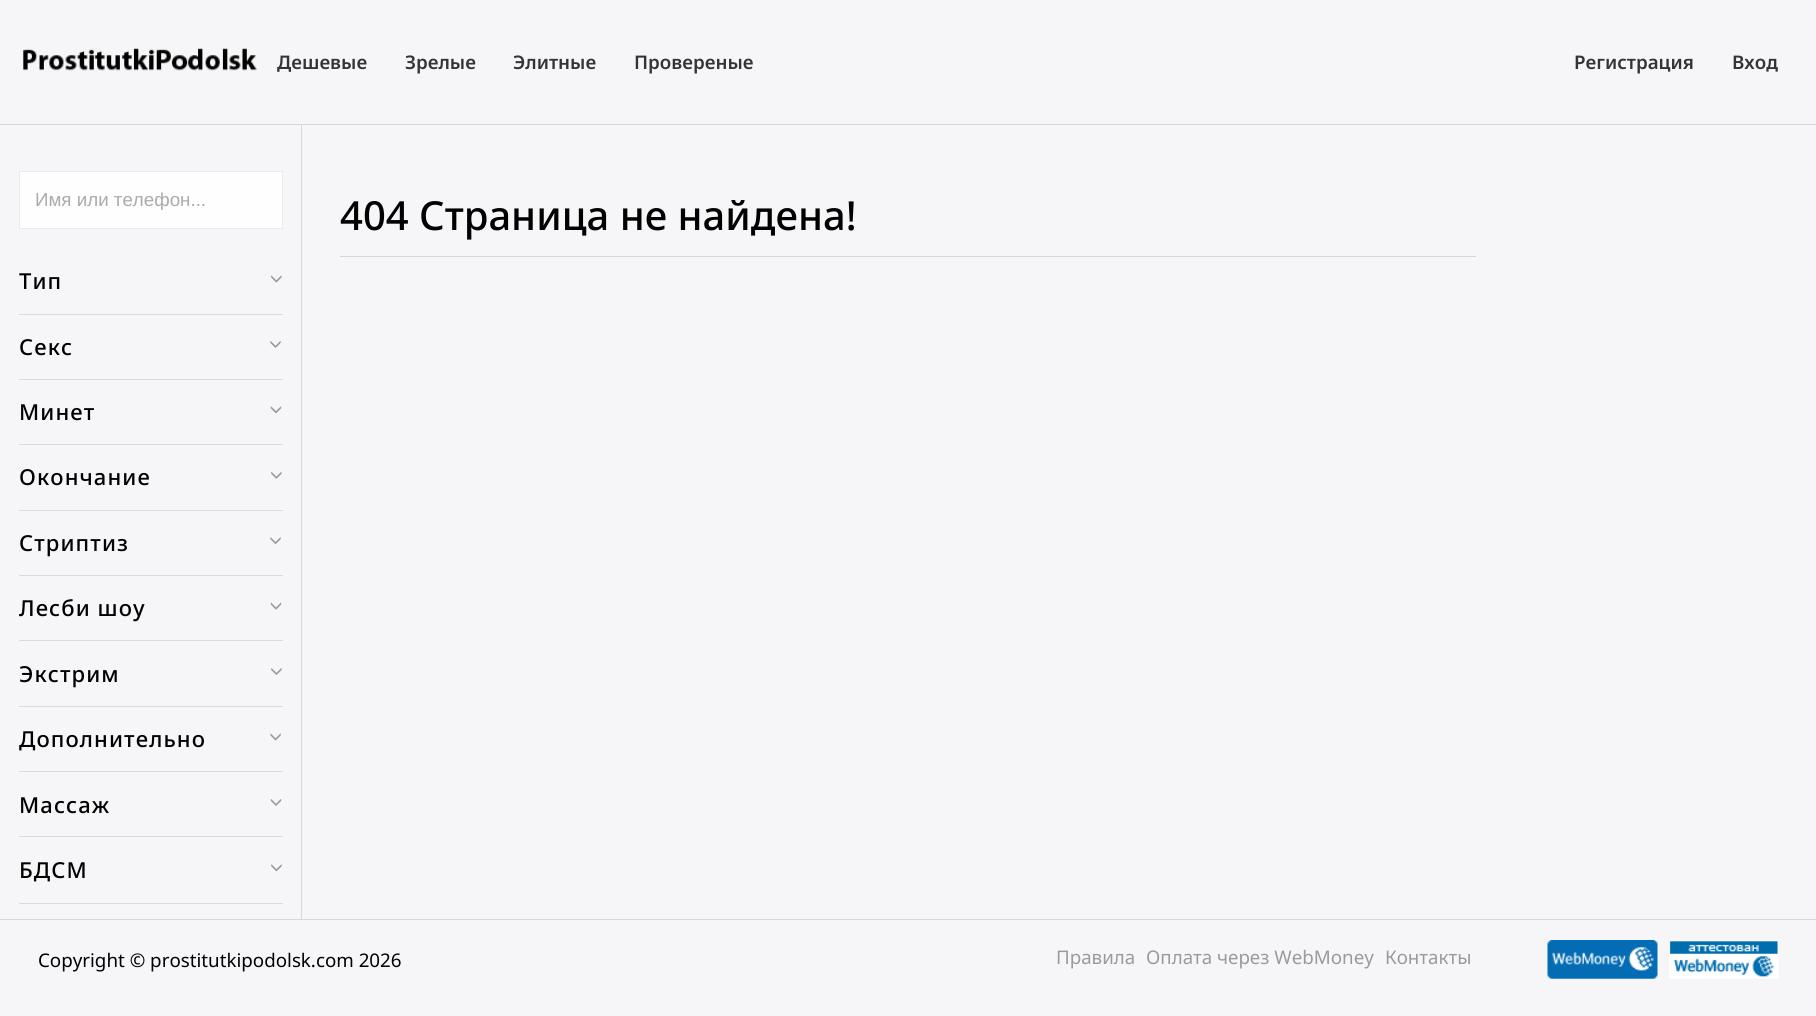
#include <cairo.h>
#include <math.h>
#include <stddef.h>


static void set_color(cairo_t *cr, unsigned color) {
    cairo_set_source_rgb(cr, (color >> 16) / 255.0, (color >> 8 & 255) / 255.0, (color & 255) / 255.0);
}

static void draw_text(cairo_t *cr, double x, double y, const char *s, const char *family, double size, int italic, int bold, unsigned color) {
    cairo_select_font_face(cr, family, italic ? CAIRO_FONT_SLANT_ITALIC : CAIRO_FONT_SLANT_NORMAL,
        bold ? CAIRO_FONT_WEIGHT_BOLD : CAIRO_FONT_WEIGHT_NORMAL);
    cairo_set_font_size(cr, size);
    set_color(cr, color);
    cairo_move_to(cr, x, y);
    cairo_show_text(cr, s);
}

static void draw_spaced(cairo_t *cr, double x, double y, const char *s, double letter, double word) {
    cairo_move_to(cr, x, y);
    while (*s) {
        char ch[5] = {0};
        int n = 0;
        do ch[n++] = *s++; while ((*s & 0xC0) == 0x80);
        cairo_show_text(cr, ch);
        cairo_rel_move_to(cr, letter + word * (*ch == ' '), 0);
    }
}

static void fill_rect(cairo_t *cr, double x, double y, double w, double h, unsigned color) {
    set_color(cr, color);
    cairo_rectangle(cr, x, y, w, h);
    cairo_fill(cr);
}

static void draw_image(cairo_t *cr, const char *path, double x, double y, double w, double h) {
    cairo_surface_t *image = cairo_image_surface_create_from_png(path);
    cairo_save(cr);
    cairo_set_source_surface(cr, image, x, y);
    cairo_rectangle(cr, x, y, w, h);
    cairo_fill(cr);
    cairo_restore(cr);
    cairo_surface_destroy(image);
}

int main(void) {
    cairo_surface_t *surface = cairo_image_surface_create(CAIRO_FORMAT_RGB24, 1816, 1016);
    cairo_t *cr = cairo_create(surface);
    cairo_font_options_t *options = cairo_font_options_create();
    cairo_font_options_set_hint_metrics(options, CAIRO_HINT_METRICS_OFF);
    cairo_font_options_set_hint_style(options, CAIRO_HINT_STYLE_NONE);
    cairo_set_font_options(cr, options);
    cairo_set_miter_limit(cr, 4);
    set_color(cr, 0xF6F6F8);
    cairo_paint(cr);
    fill_rect(cr, 301, 121, 1, 798, 0xD8D8DA);
    fill_rect(cr, 301, 121, 1, 3, 0xF6F6F8);
    fill_rect(cr, 0, 124, 1816, 1, 0xD8D8DA);
    draw_image(cr, "assets/img1.png", 23, 48, 234, 23);
    draw_text(cr, 277, 69, "Дешевые", "Noto Sans SemiBold", 18.75, 0, 0, 0x333439);
    draw_text(cr, 405, 69, "Зрелые", "Noto Sans SemiBold", 18.75, 0, 0, 0x333439);
    draw_text(cr, 513, 69, "Элитные", "Noto Sans SemiBold", 18.75, 0, 0, 0x333439);
    draw_text(cr, 634, 69, "Провереные", "Noto Sans SemiBold", 18.75, 0, 0, 0x333439);
    draw_text(cr, 1574, 69, "Регистрация", "Noto Sans SemiBold", 18.75, 0, 0, 0x333439);
    draw_text(cr, 1732, 69, "Вход", "Noto Sans SemiBold", 18.75, 0, 0, 0x333439);
    set_color(cr, 0xFEFEFE);
    cairo_rectangle(cr, 19.5, 171.5, 263, 57);
    cairo_fill_preserve(cr);
    set_color(cr, 0xEAEAEA);
    cairo_set_line_width(cr, 1);
    cairo_stroke(cr);
    draw_text(cr, 35, 206, "Имя или телефон...", "Liberation Sans", 18.75, 0, 0, 0xAAAAAA);
    cairo_select_font_face(cr, "Noto Sans Medium", CAIRO_FONT_SLANT_NORMAL, CAIRO_FONT_WEIGHT_NORMAL);
    cairo_set_font_size(cr, 22);
    set_color(cr, 0x000000);
    draw_spaced(cr, 19, 289, "Тип", 1.1, 0);
    draw_image(cr, "assets/img2.png", 271, 275, 11, 8);
    fill_rect(cr, 19, 314, 264, 1, 0xDADADC);
    set_color(cr, 0x000000);
    draw_spaced(cr, 19, 355, "Секс", 1.1, 0);
    draw_image(cr, "assets/img3.png", 270, 341, 11, 7);
    fill_rect(cr, 19, 379, 264, 1, 0xDADADC);
    set_color(cr, 0x000000);
    draw_spaced(cr, 19, 420, "Минет", 1.1, 0);
    draw_image(cr, "assets/img4.png", 270, 406, 12, 8);
    fill_rect(cr, 19, 444, 264, 1, 0xDADADC);
    set_color(cr, 0x000000);
    draw_spaced(cr, 19, 485, "Окончание", 1.1, 0);
    draw_image(cr, "assets/img5.png", 271, 471, 11, 8);
    fill_rect(cr, 19, 510, 264, 1, 0xDADADC);
    set_color(cr, 0x000000);
    draw_spaced(cr, 19, 551, "Стриптиз", 1.1, 0);
    draw_image(cr, "assets/img6.png", 270, 537, 11, 8);
    fill_rect(cr, 19, 575, 264, 1, 0xDADADC);
    set_color(cr, 0x000000);
    draw_spaced(cr, 19, 616, "Лесби шоу", 1.1, 0);
    draw_image(cr, "assets/img7.png", 270, 602, 12, 8);
    fill_rect(cr, 19, 640, 264, 1, 0xDADADC);
    set_color(cr, 0x000000);
    draw_spaced(cr, 19, 682, "Экстрим", 1.1, 0);
    draw_image(cr, "assets/img8.png", 271, 668, 11, 7);
    fill_rect(cr, 19, 706, 264, 1, 0xDADADC);
    set_color(cr, 0x000000);
    draw_spaced(cr, 19, 747, "Дополнительно", 1.1, 0);
    draw_image(cr, "assets/img9.png", 270, 733, 11, 8);
    fill_rect(cr, 19, 771, 264, 1, 0xDADADC);
    set_color(cr, 0x000000);
    draw_spaced(cr, 19, 813, "Массаж", 1.1, 0);
    draw_image(cr, "assets/img10.png", 270, 799, 12, 7);
    fill_rect(cr, 19, 836, 264, 1, 0xDADADC);
    set_color(cr, 0x000000);
    draw_spaced(cr, 19, 878, "БДСМ", 1.1, 0);
    draw_image(cr, "assets/img11.png", 271, 864, 11, 8);
    fill_rect(cr, 19, 903, 264, 1, 0xDADADC);
    fill_rect(cr, 340, 256, 1136, 1, 0xD8D8DA);
    draw_text(cr, 340, 230, "404 Страница не найдена!", "Noto Sans Medium", 40, 0, 0, 0x000000);
    fill_rect(cr, 0, 919, 1816, 1, 0xD8D8DA);
    draw_text(cr, 38, 967, "Copyright © prostitutkipodolsk.com 2026", "Noto Sans", 18.75, 0, 0, 0x000000);
    draw_text(cr, 1056, 964, "Правила", "Noto Sans", 18.75, 0, 0, 0x9B9A9B);
    draw_text(cr, 1146, 964, "Оплата через WebMoney", "Noto Sans", 18.75, 0, 0, 0x9B9A9B);
    draw_text(cr, 1385, 964, "Контакты", "Noto Sans", 18.75, 0, 0, 0x9B9A9B);
    draw_image(cr, "assets/img12.png", 1547, 940, 111, 39);
    draw_image(cr, "assets/img13.png", 1669, 940, 110, 39);
    cairo_surface_write_to_png(surface, "output.png");
    cairo_font_options_destroy(options);
    cairo_destroy(cr);
    cairo_surface_destroy(surface);
    return 0;
}
